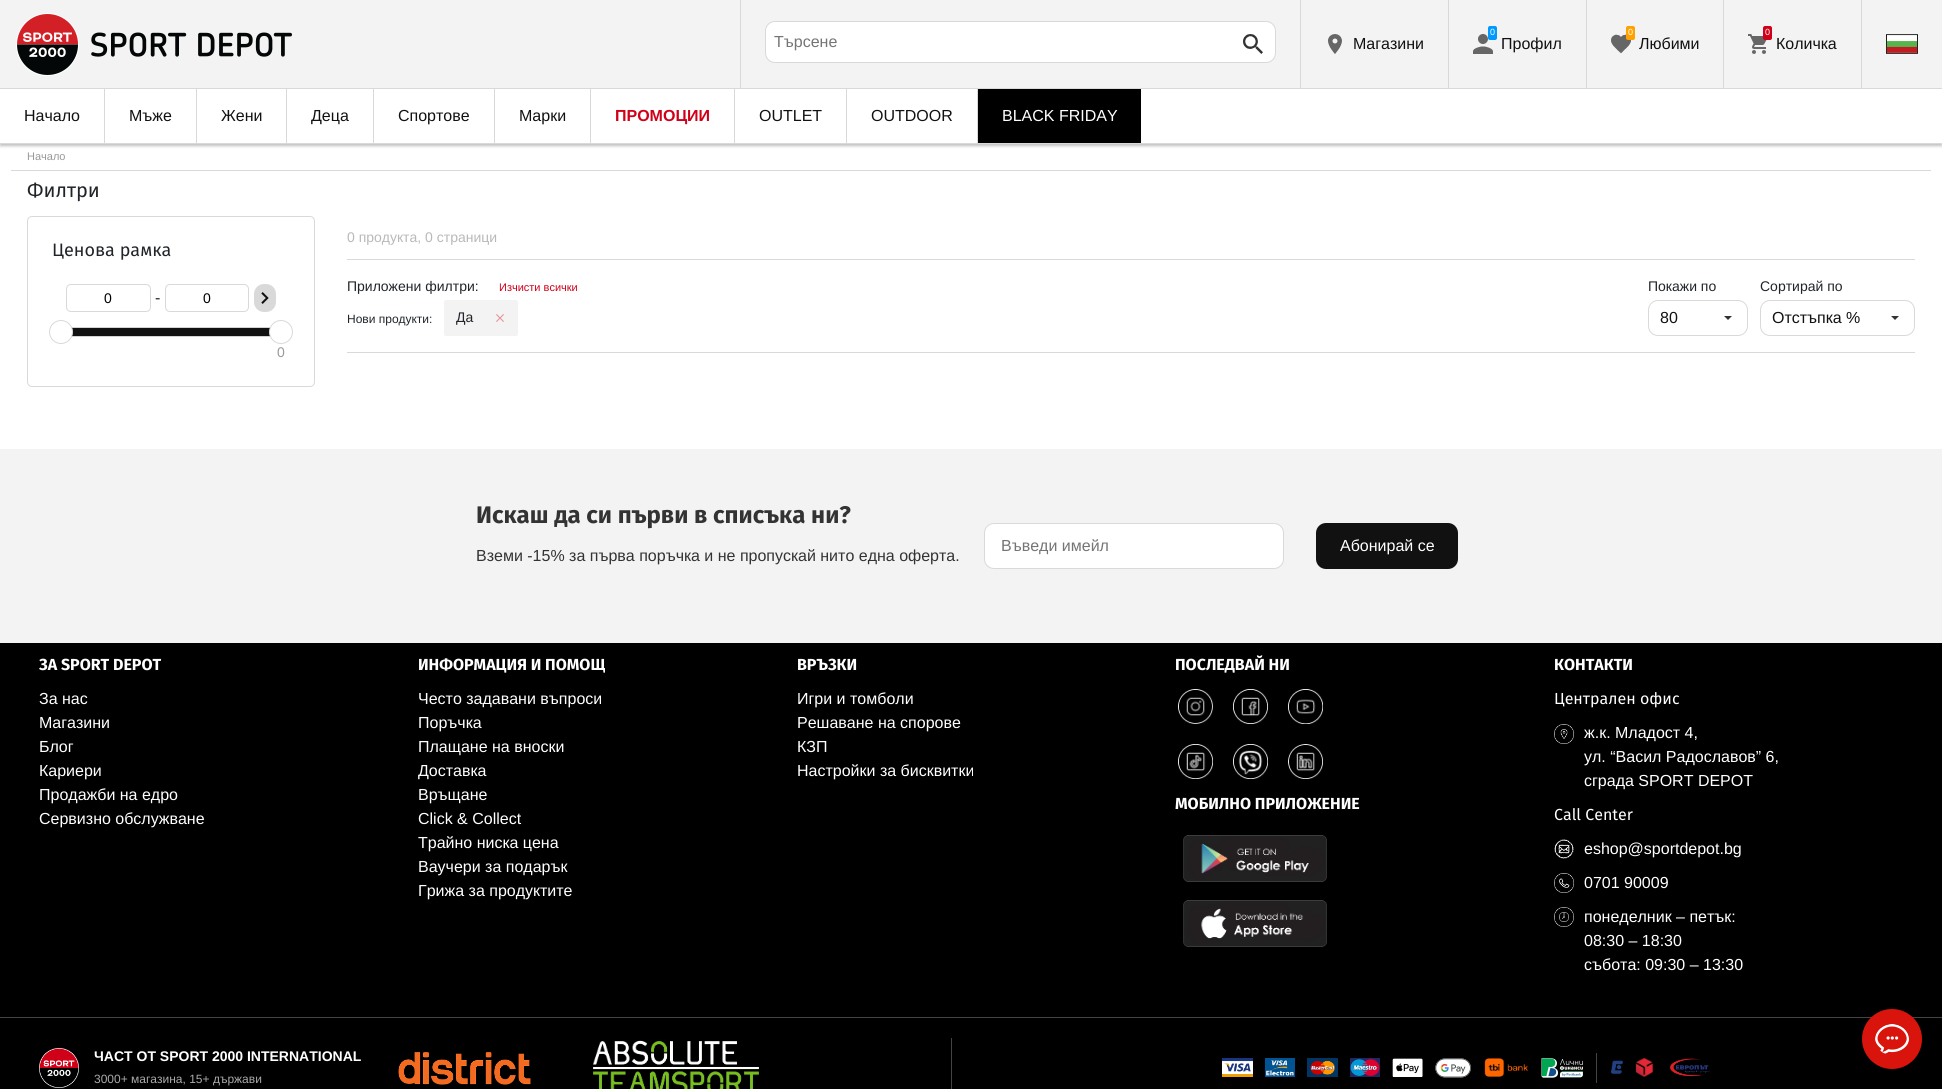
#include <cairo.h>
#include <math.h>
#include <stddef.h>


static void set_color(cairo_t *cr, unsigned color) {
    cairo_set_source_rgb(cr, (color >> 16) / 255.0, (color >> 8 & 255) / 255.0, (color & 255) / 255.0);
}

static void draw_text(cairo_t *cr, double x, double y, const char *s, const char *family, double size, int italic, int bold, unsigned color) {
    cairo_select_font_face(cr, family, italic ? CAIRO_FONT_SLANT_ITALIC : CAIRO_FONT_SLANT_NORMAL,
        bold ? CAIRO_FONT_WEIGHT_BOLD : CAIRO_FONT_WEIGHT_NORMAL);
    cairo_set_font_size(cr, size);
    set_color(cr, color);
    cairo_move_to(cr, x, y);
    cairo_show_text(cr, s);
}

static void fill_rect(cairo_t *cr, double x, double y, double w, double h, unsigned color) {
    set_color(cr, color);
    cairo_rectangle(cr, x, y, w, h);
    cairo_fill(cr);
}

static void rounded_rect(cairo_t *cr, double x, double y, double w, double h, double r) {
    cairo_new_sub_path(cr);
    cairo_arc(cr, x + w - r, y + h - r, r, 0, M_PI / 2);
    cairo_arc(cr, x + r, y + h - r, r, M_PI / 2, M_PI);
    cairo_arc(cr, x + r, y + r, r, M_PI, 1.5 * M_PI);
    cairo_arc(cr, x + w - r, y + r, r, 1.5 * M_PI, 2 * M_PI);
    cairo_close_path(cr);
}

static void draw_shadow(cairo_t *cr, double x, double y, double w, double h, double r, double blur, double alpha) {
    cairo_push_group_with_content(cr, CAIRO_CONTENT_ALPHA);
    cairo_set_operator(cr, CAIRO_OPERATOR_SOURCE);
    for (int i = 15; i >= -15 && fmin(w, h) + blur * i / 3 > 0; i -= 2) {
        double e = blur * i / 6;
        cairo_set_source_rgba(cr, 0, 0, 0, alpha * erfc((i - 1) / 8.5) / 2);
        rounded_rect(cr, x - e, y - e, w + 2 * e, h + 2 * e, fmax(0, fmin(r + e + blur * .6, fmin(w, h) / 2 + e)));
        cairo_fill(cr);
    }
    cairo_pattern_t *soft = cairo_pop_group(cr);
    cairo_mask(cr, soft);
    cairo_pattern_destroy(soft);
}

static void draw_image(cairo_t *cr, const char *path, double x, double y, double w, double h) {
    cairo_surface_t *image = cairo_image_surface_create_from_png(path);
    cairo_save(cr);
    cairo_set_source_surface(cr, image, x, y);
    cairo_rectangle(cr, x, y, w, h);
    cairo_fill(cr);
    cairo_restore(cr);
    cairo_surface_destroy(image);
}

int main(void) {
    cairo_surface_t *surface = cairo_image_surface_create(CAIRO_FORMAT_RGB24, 1942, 1089);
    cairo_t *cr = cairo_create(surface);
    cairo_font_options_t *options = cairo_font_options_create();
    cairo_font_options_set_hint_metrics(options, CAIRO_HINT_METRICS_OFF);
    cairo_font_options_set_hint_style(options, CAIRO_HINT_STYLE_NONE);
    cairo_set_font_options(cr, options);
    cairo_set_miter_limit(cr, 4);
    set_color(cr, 0xFFFFFF);
    cairo_paint(cr);
    set_color(cr, 0x000000);
    draw_shadow(cr, 0, 91, 1942, 55, 0, 1.5, 0.25);
    fill_rect(cr, 0, 0, 1942, 88, 0xF3F3F3);
    fill_rect(cr, 0, 88, 1942, 1, 0xD9D9D9);
    draw_image(cr, "assets/img1.png", 16, 13, 276, 63);
    fill_rect(cr, 740, 0, 1, 88, 0xD9D9D9);
    set_color(cr, 0xFFFFFF);
    rounded_rect(cr, 765.5, 21.5, 510, 41, 9.5);
    cairo_fill_preserve(cr);
    set_color(cr, 0xD9D9D9);
    cairo_set_line_width(cr, 1);
    cairo_stroke(cr);
    draw_text(cr, 774, 47, "Търсене", "Liberation Sans", 16, 0, 0, 0x757575);
    draw_image(cr, "assets/img2.png", 1243, 34, 20, 20);
    fill_rect(cr, 1300, 0, 1, 88, 0xD9D9D9);
    draw_image(cr, "assets/img3.png", 1328, 34, 14, 20);
    draw_text(cr, 1353, 49, "Магазини", "Liberation Sans", 16, 0, 0, 0x111111);
    fill_rect(cr, 1448, 0, 1, 88, 0xD9D9D9);
    draw_image(cr, "assets/img4.png", 1473, 34, 20, 20);
    set_color(cr, 0x0099FF);
    rounded_rect(cr, 1488, 26, 9, 14, 2);
    cairo_fill(cr);
    draw_text(cr, 1490, 35, "0", "Liberation Sans", 9, 0, 0, 0xFFFFFF);
    draw_text(cr, 1501, 49, "Профил", "Liberation Sans", 16, 0, 0, 0x111111);
    fill_rect(cr, 1586, 0, 1, 88, 0xD9D9D9);
    draw_image(cr, "assets/img5.png", 1611, 34, 20, 20);
    set_color(cr, 0xFFA200);
    rounded_rect(cr, 1626, 26, 9, 14, 2);
    cairo_fill(cr);
    draw_text(cr, 1628, 35, "0", "Liberation Sans", 9, 0, 0, 0xFFFFFF);
    draw_text(cr, 1639, 49, "Любими", "Liberation Sans", 16, 0, 0, 0x111111);
    fill_rect(cr, 1723, 0, 1, 88, 0xD9D9D9);
    draw_image(cr, "assets/img6.png", 1748, 34, 19, 20);
    set_color(cr, 0xD10019);
    rounded_rect(cr, 1763, 26, 9, 14, 2);
    cairo_fill(cr);
    draw_text(cr, 1765, 35, "0", "Liberation Sans", 9, 0, 0, 0xFFFFFF);
    draw_text(cr, 1776, 49, "Количка", "Liberation Sans", 16, 0, 0, 0x111111);
    fill_rect(cr, 1861, 0, 1, 88, 0xD9D9D9);
    draw_image(cr, "assets/img7.png", 1886, 34, 32, 20);
    fill_rect(cr, 0, 89, 1942, 54, 0xFFFFFF);
    fill_rect(cr, 0, 143, 1942, 1, 0xD9D9D9);
    draw_text(cr, 24, 121, "Начало", "Liberation Sans", 16, 0, 0, 0x111111);
    fill_rect(cr, 104, 89, 1, 54, 0xD9D9D9);
    draw_text(cr, 129, 121, "Мъже", "Liberation Sans", 16, 0, 0, 0x111111);
    fill_rect(cr, 196, 89, 1, 54, 0xD9D9D9);
    draw_text(cr, 221, 121, "Жени", "Liberation Sans", 16, 0, 0, 0x111111);
    fill_rect(cr, 286, 89, 1, 54, 0xD9D9D9);
    draw_text(cr, 311, 121, "Деца", "Liberation Sans", 16, 0, 0, 0x111111);
    fill_rect(cr, 373, 89, 1, 54, 0xD9D9D9);
    draw_text(cr, 398, 121, "Спортове", "Liberation Sans", 16, 0, 0, 0x111111);
    fill_rect(cr, 494, 89, 1, 54, 0xD9D9D9);
    draw_text(cr, 519, 121, "Марки", "Liberation Sans", 16, 0, 0, 0x111111);
    fill_rect(cr, 590, 89, 1, 54, 0xD9D9D9);
    draw_text(cr, 615, 121, "ПРОМОЦИИ", "Liberation Sans", 16, 0, 1, 0xD10019);
    fill_rect(cr, 734, 89, 1, 54, 0xD9D9D9);
    draw_text(cr, 759, 121, "OUTLET", "Liberation Sans", 16, 0, 0, 0x111111);
    fill_rect(cr, 846, 89, 1, 54, 0xD9D9D9);
    draw_text(cr, 871, 121, "OUTDOOR", "Liberation Sans", 16, 0, 0, 0x111111);
    fill_rect(cr, 978, 89, 163, 54, 0x000000);
    fill_rect(cr, 977, 89, 1, 54, 0xD9D9D9);
    draw_text(cr, 1002, 121, "BLACK FRIDAY", "Liberation Sans", 16, 0, 0, 0xFFFFFF);
    fill_rect(cr, 11, 170, 1920, 1, 0xD9D9D9);
    draw_text(cr, 27, 160, "Начало", "Liberation Sans", 11, 0, 0, 0x999999);
    draw_text(cr, 27, 197, "Филтри", "Fira Sans", 20, 0, 0, 0x212529);
    rounded_rect(cr, 27.5, 216.5, 287, 170, 4.5);
    set_color(cr, 0xD9D9D9);
    cairo_stroke(cr);
    draw_text(cr, 52, 256, "Ценова рамка", "Fira Sans", 18, 0, 0, 0x212529);
    rounded_rect(cr, 66.5, 284.5, 84, 27, 4.5);
    set_color(cr, 0xD9D9D9);
    cairo_stroke(cr);
    draw_text(cr, 104, 303, "0", "Liberation Sans", 14, 0, 0, 0x000000);
    draw_text(cr, 155, 303, "-", "Liberation Sans", 16, 0, 0, 0x212529);
    rounded_rect(cr, 165.5, 284.5, 83, 27, 4.5);
    set_color(cr, 0xD9D9D9);
    cairo_stroke(cr);
    draw_text(cr, 203, 303, "0", "Liberation Sans", 14, 0, 0, 0x000000);
    set_color(cr, 0xD9D9D9);
    rounded_rect(cr, 254, 284, 22, 28, 10);
    cairo_fill(cr);
    draw_image(cr, "assets/img8.png", 261, 292, 8, 12);
    cairo_rectangle(cr, 60.5, 327.5, 221, 9);
    set_color(cr, 0xD3D3D3);
    cairo_stroke(cr);
    fill_rect(cr, 72, 328, 198, 8, 0x111111);
    set_color(cr, 0xFFFFFF);
    cairo_arc(cr, 61, 332, 11.5, 0, 2 * M_PI);
    cairo_fill_preserve(cr);
    set_color(cr, 0xD9D9D9);
    cairo_stroke(cr);
    set_color(cr, 0xFFFFFF);
    cairo_arc(cr, 281, 332, 11.5, 0, 2 * M_PI);
    cairo_fill_preserve(cr);
    set_color(cr, 0xD9D9D9);
    cairo_stroke(cr);
    draw_text(cr, 277, 357, "0", "Liberation Sans", 14, 0, 0, 0x999999);
    fill_rect(cr, 347, 352, 1568, 1, 0xD9D9D9);
    draw_text(cr, 347, 242, "0 продукта, 0 страници", "Liberation Sans", 14, 0, 0, 0xB9B9B9);
    fill_rect(cr, 347, 259, 1568, 1, 0xD9D9D9);
    draw_text(cr, 347, 291, "Приложени филтри:", "Liberation Sans", 14, 0, 0, 0x212529);
    draw_text(cr, 499, 291, "Изчисти всички", "Liberation Sans", 11, 0, 0, 0xD10019);
    draw_text(cr, 347, 323, "Нови продукти:", "Liberation Sans", 12, 0, 0, 0x212529);
    set_color(cr, 0xF3F3F3);
    rounded_rect(cr, 444, 300, 74, 36, 2);
    cairo_fill(cr);
    draw_text(cr, 456, 322, "Да", "Liberation Sans", 14, 0, 0, 0x212529);
    draw_image(cr, "assets/img9.png", 496, 314, 8, 8);
    draw_text(cr, 1648, 291, "Покажи по", "Liberation Sans", 14, 0, 0, 0x212529);
    rounded_rect(cr, 1648.5, 300.5, 99, 35, 9.5);
    set_color(cr, 0xD9D9D9);
    cairo_stroke(cr);
    draw_text(cr, 1660, 323, "80", "Liberation Sans", 16, 0, 0, 0x111111);
    set_color(cr, 0x333333);
    cairo_new_path(cr);
    cairo_move_to(cr, 1724, 316);
    cairo_line_to(cr, 1732, 316);
    cairo_line_to(cr, 1728, 320);
    cairo_close_path(cr);
    cairo_fill(cr);
    draw_text(cr, 1760, 291, "Сортирай по", "Liberation Sans", 14, 0, 0, 0x212529);
    rounded_rect(cr, 1760.5, 300.5, 154, 35, 9.5);
    set_color(cr, 0xD9D9D9);
    cairo_stroke(cr);
    draw_text(cr, 1772, 323, "Отстъпка %", "Liberation Sans", 16, 0, 0, 0x111111);
    set_color(cr, 0x333333);
    cairo_new_path(cr);
    cairo_move_to(cr, 1891, 316);
    cairo_line_to(cr, 1899, 316);
    cairo_line_to(cr, 1895, 320);
    cairo_close_path(cr);
    cairo_fill(cr);
    fill_rect(cr, 0, 449, 1942, 194, 0xF3F3F3);
    draw_text(cr, 476, 523, "Искаш да си първи в списъка ни?", "Fira Sans", 24, 0, 1, 0x333333);
    draw_text(cr, 476, 561, "Вземи -15% за първа поръчка и не пропускай нито една оферта.", "Liberation Sans", 16, 0, 0, 0x333333);
    set_color(cr, 0xFFFFFF);
    rounded_rect(cr, 984.5, 523.5, 299, 45, 9.5);
    cairo_fill_preserve(cr);
    set_color(cr, 0xD9D9D9);
    cairo_stroke(cr);
    draw_text(cr, 1001, 551, "Въведи имейл", "Liberation Sans", 16, 0, 0, 0x757575);
    set_color(cr, 0x111111);
    rounded_rect(cr, 1316, 523, 142, 46, 10);
    cairo_fill(cr);
    draw_text(cr, 1340, 551, "Абонирай се", "Liberation Sans", 16, 0, 0, 0xFFFFFF);
    fill_rect(cr, 0, 643, 1942, 446, 0x000000);
    draw_text(cr, 39, 670, "ЗА SPORT DEPOT", "Fira Sans", 16, 0, 1, 0xFFFFFF);
    draw_text(cr, 39, 704, "За нас", "Liberation Sans", 16, 0, 0, 0xFFFFFF);
    draw_text(cr, 39, 728, "Магазини", "Liberation Sans", 16, 0, 0, 0xFFFFFF);
    draw_text(cr, 39, 752, "Блог", "Liberation Sans", 16, 0, 0, 0xFFFFFF);
    draw_text(cr, 39, 776, "Кариери", "Liberation Sans", 16, 0, 0, 0xFFFFFF);
    draw_text(cr, 39, 800, "Продажби на едро", "Liberation Sans", 16, 0, 0, 0xFFFFFF);
    draw_text(cr, 39, 824, "Сервизно обслужване", "Liberation Sans", 16, 0, 0, 0xFFFFFF);
    draw_text(cr, 418, 670, "ИНФОРМАЦИЯ И ПОМОЩ", "Fira Sans", 16, 0, 1, 0xFFFFFF);
    draw_text(cr, 418, 704, "Често задавани въпроси", "Liberation Sans", 16, 0, 0, 0xFFFFFF);
    draw_text(cr, 418, 728, "Поръчка", "Liberation Sans", 16, 0, 0, 0xFFFFFF);
    draw_text(cr, 418, 752, "Плащане на вноски", "Liberation Sans", 16, 0, 0, 0xFFFFFF);
    draw_text(cr, 418, 776, "Доставка", "Liberation Sans", 16, 0, 0, 0xFFFFFF);
    draw_text(cr, 418, 800, "Връщане", "Liberation Sans", 16, 0, 0, 0xFFFFFF);
    draw_text(cr, 418, 824, "Click & Collect", "Liberation Sans", 16, 0, 0, 0xFFFFFF);
    draw_text(cr, 418, 848, "Трайно ниска цена", "Liberation Sans", 16, 0, 0, 0xFFFFFF);
    draw_text(cr, 418, 872, "Ваучери за подарък", "Liberation Sans", 16, 0, 0, 0xFFFFFF);
    draw_text(cr, 418, 896, "Грижа за продуктите", "Liberation Sans", 16, 0, 0, 0xFFFFFF);
    draw_text(cr, 797, 670, "ВРЪЗКИ", "Fira Sans", 16, 0, 1, 0xFFFFFF);
    draw_text(cr, 797, 704, "Игри и томболи", "Liberation Sans", 16, 0, 0, 0xFFFFFF);
    draw_text(cr, 797, 728, "Решаване на спорове", "Liberation Sans", 16, 0, 0, 0xFFFFFF);
    draw_text(cr, 797, 752, "КЗП", "Liberation Sans", 16, 0, 0, 0xFFFFFF);
    draw_text(cr, 797, 776, "Настройки за бисквитки", "Liberation Sans", 16, 0, 0, 0xFFFFFF);
    draw_text(cr, 1175, 670, "ПОСЛЕДВАЙ НИ", "Fira Sans", 16, 0, 1, 0xFFFFFF);
    draw_image(cr, "assets/img10.png", 1178, 689, 35, 35);
    draw_image(cr, "assets/img11.png", 1233, 689, 35, 35);
    draw_image(cr, "assets/img12.png", 1288, 689, 35, 35);
    draw_image(cr, "assets/img13.png", 1178, 744, 35, 35);
    draw_image(cr, "assets/img14.png", 1233, 744, 35, 35);
    draw_image(cr, "assets/img15.png", 1288, 744, 35, 35);
    draw_text(cr, 1175, 809, "МОБИЛНО ПРИЛОЖЕНИЕ", "Fira Sans", 16, 0, 1, 0xFFFFFF);
    draw_image(cr, "assets/img16.png", 1183, 835, 144, 47);
    draw_image(cr, "assets/img17.png", 1183, 900, 144, 47);
    draw_text(cr, 1554, 670, "КОНТАКТИ", "Fira Sans", 16, 0, 1, 0xFFFFFF);
    draw_text(cr, 1554, 704, "Централен офис", "Fira Sans", 16, 0, 0, 0xFFFFFF);
    draw_image(cr, "assets/img18.png", 1554, 724, 20, 20);
    draw_text(cr, 1584, 738, "ж.к. Младост 4,", "Liberation Sans", 16, 0, 0, 0xFFFFFF);
    draw_text(cr, 1584, 762, "ул. “Васил Радославов” 6,", "Liberation Sans", 16, 0, 0, 0xFFFFFF);
    draw_text(cr, 1584, 786, "сграда SPORT DEPOT", "Liberation Sans", 16, 0, 0, 0xFFFFFF);
    draw_text(cr, 1554, 820, "Call Center", "Fira Sans", 16, 0, 0, 0xFFFFFF);
    draw_image(cr, "assets/img19.png", 1554, 839, 20, 20);
    draw_text(cr, 1584, 854, "eshop@sportdepot.bg", "Liberation Sans", 16, 0, 0, 0xFFFFFF);
    draw_image(cr, "assets/img20.png", 1554, 873, 20, 20);
    draw_text(cr, 1584, 888, "0701 90009", "Liberation Sans", 16, 0, 0, 0xFFFFFF);
    draw_image(cr, "assets/img21.png", 1554, 907, 20, 20);
    draw_text(cr, 1584, 922, "понеделник – петък:", "Liberation Sans", 16, 0, 0, 0xFFFFFF);
    draw_text(cr, 1584, 946, "08:30 – 18:30", "Liberation Sans", 16, 0, 0, 0xFFFFFF);
    draw_text(cr, 1584, 970, "събота: 09:30 – 13:30", "Liberation Sans", 16, 0, 0, 0xFFFFFF);
    fill_rect(cr, 0, 1017, 1942, 1, 0x444444);
    fill_rect(cr, 951, 1038, 1, 51, 0x444444);
    draw_image(cr, "assets/img22.png", 39, 1048, 40, 40);
    draw_text(cr, 94, 1061, "ЧАСТ ОТ SPORT 2000 INTERNATIONAL", "Liberation Sans", 14, 0, 1, 0xFFFFFF);
    draw_text(cr, 94, 1083, "3000+ магазина, 15+ държави", "Liberation Sans", 12, 0, 0, 0xAAAAAA);
    draw_image(cr, "assets/img23.png", 398, 1052, 133, 33);
    draw_image(cr, "assets/img24.png", 593, 1040, 166, 49);
    draw_image(cr, "assets/img25.png", 1222, 1058, 31, 19);
    draw_image(cr, "assets/img26.png", 1265, 1058, 30, 19);
    draw_image(cr, "assets/img27.png", 1307, 1058, 31, 19);
    draw_image(cr, "assets/img28.png", 1350, 1058, 30, 19);
    draw_image(cr, "assets/img29.png", 1392, 1058, 31, 19);
    draw_image(cr, "assets/img30.png", 1435, 1058, 36, 20);
    draw_image(cr, "assets/img31.png", 1484, 1058, 44, 19);
    draw_image(cr, "assets/img32.png", 1541, 1058, 42, 20);
    fill_rect(cr, 1596, 1053, 1, 30, 0x444444);
    draw_image(cr, "assets/img33.png", 1611, 1060, 12, 14);
    draw_image(cr, "assets/img34.png", 1635, 1058, 18, 19);
    draw_image(cr, "assets/img35.png", 1670, 1058, 40, 19);
    set_color(cr, 0xD9140C);
    cairo_arc(cr, 1892, 1039, 30, 0, 2 * M_PI);
    cairo_fill(cr);
    draw_image(cr, "assets/img36.png", 1875, 1024, 34, 30);
    cairo_surface_write_to_png(surface, "output.png");
    cairo_font_options_destroy(options);
    cairo_destroy(cr);
    cairo_surface_destroy(surface);
    return 0;
}
